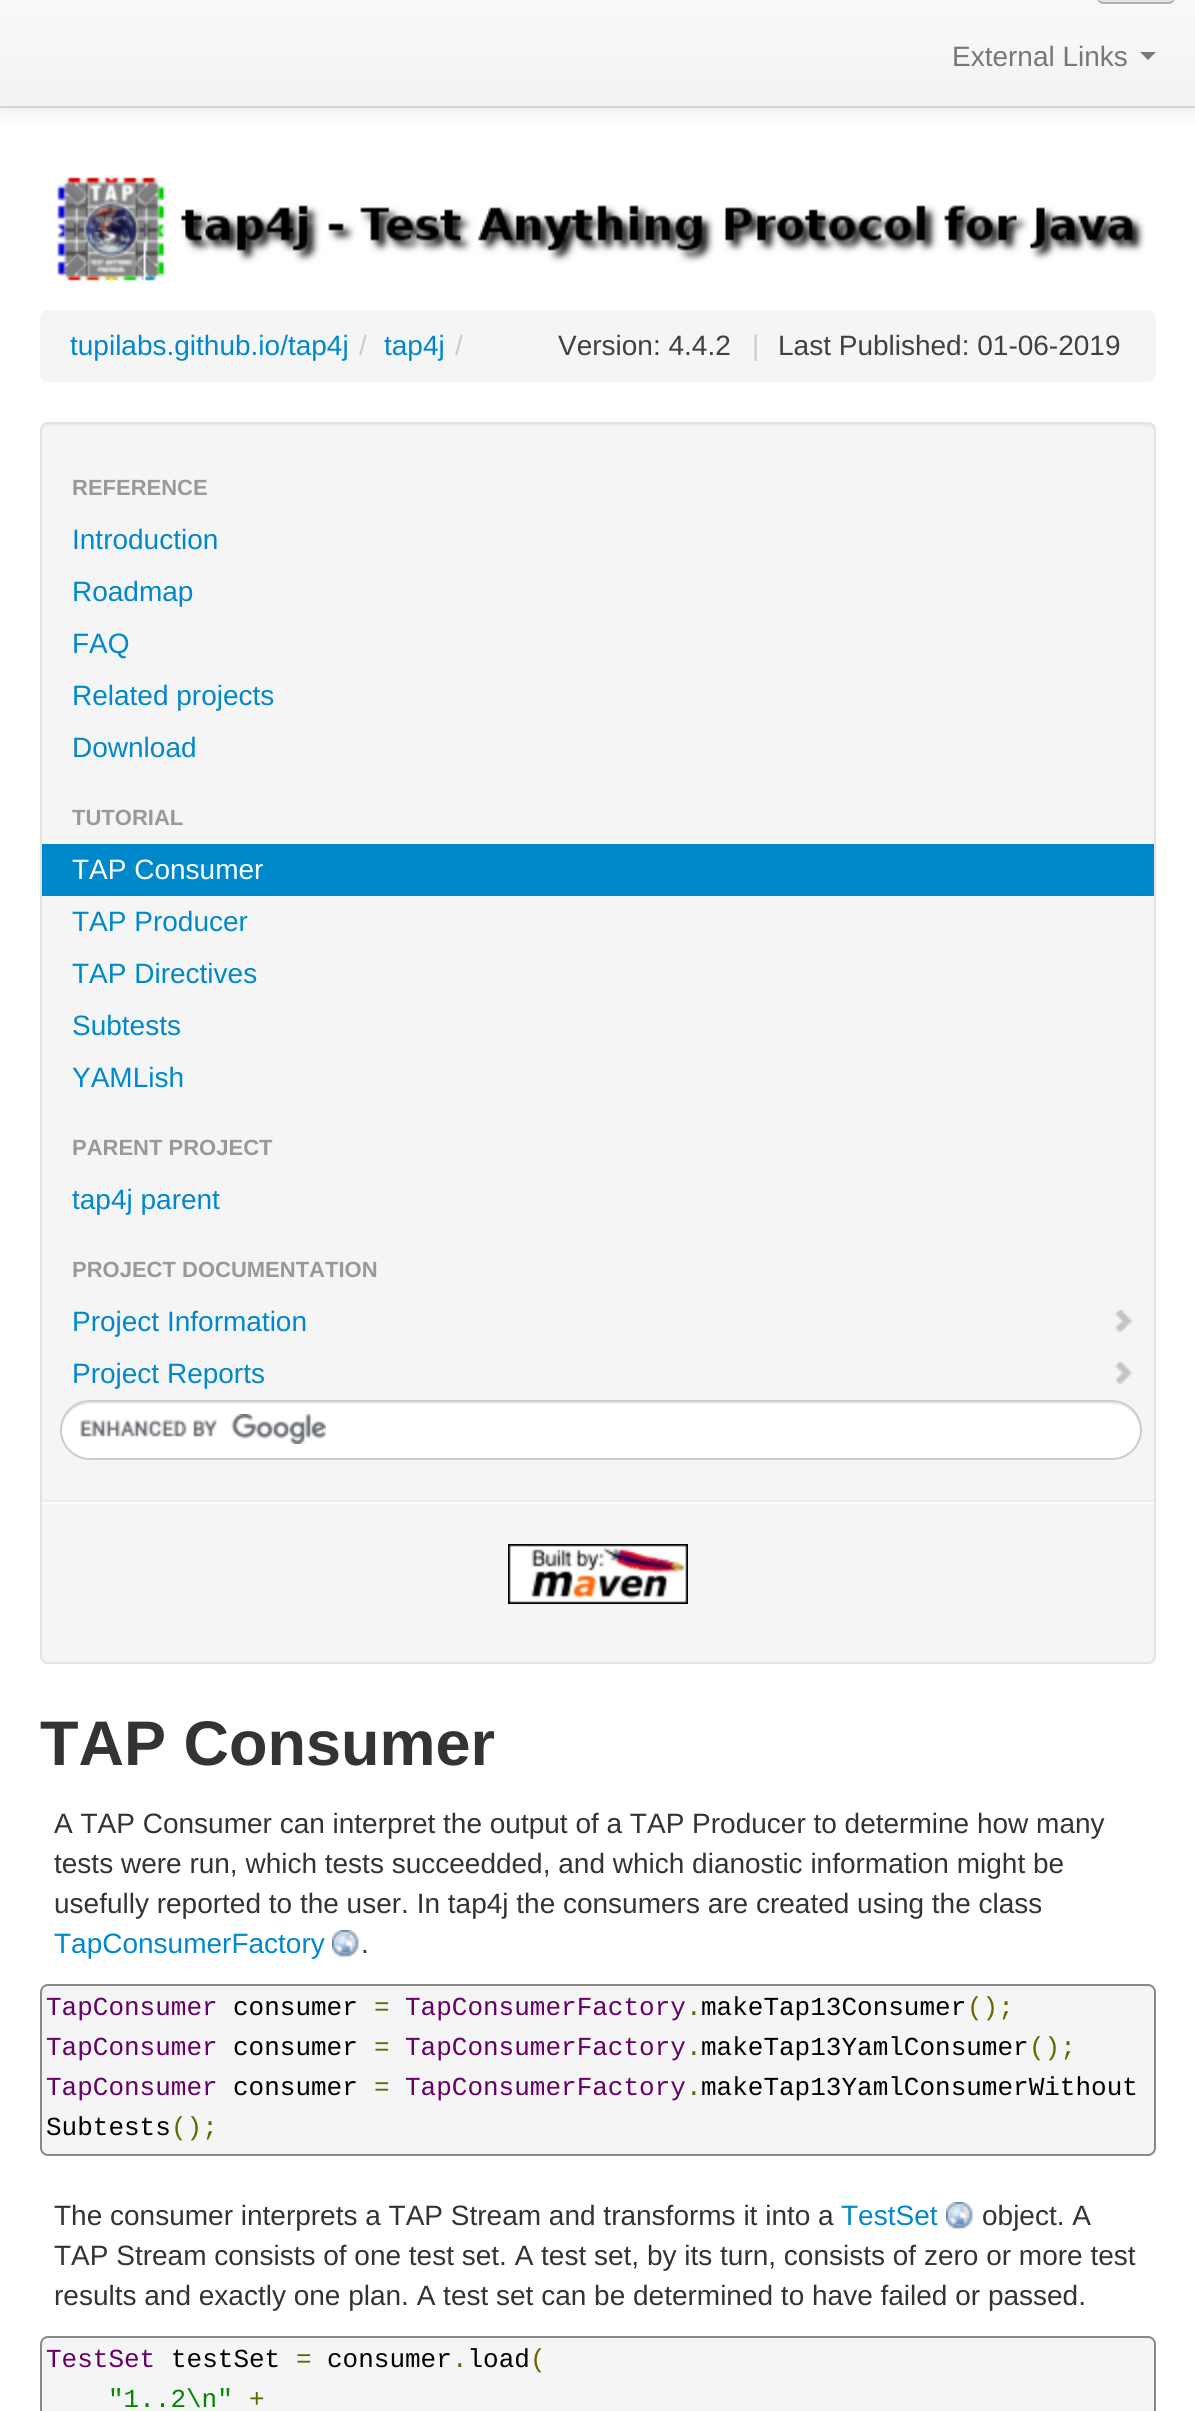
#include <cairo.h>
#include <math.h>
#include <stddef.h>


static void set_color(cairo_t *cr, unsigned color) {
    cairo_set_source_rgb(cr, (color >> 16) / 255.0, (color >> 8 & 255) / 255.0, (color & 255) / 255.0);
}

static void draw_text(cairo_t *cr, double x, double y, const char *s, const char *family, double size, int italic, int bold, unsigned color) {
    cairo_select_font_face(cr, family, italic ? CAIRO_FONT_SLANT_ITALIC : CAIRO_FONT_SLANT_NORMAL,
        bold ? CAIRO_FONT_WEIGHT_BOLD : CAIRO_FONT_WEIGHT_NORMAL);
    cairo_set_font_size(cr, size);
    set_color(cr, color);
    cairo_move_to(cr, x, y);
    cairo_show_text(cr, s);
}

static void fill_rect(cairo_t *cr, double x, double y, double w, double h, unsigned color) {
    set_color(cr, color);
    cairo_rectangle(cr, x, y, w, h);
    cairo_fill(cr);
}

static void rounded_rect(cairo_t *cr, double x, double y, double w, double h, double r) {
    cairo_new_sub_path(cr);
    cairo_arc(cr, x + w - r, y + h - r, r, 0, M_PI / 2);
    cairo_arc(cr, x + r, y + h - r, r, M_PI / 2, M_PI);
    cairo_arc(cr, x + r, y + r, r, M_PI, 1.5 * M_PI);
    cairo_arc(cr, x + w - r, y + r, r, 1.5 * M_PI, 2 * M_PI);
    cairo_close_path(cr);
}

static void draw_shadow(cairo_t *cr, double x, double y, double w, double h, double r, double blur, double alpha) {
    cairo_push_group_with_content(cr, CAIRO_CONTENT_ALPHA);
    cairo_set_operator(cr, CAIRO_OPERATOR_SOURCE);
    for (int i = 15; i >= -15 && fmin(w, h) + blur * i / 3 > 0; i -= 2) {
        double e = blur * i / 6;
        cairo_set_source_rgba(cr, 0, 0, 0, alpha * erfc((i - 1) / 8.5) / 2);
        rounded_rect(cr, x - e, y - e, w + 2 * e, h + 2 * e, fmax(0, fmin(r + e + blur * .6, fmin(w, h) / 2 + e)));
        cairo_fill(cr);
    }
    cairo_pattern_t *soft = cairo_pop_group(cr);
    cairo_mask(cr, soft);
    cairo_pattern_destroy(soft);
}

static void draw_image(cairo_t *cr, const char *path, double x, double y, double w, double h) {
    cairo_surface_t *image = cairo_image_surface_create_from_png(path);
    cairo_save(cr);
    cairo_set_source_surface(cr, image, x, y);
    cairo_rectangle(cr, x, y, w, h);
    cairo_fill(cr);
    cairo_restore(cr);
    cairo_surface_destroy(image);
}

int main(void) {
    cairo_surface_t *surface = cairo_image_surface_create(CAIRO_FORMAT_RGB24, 1195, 2411);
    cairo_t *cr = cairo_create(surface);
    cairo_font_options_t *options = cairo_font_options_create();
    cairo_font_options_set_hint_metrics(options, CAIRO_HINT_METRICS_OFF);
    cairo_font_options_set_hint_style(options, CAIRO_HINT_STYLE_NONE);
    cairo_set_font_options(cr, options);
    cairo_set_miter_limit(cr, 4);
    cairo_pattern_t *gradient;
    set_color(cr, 0xFFFFFF);
    cairo_paint(cr);
    set_color(cr, 0x000000);
    draw_shadow(cr, 0, -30, 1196, 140, 0, 10, 0.1);
    gradient = cairo_pattern_create_linear(598, -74, 598, 106);
    cairo_pattern_add_color_stop_rgba(gradient, 0, 1, 1, 1, 1);
    cairo_pattern_add_color_stop_rgba(gradient, 1, 0.949, 0.949, 0.949, 1);
    cairo_set_source(cr, gradient);
    cairo_pattern_destroy(gradient);
    cairo_rectangle(cr, 0, 0, 1195, 106);
    cairo_fill(cr);
    fill_rect(cr, 0, 106, 1195, 2, 0xD4D4D4);
    set_color(cr, 0xEDEDED);
    rounded_rect(cr, 1096, -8, 80, 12, 8);
    cairo_fill(cr);
    cairo_save(cr);
    rounded_rect(cr, 1096, -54, 80, 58, 8);
    cairo_clip(cr);
    gradient = cairo_pattern_create_linear(1136, -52, 1136, 2);
    cairo_pattern_add_color_stop_rgba(gradient, 0, 0.949, 0.949, 0.949, 1);
    cairo_pattern_add_color_stop_rgba(gradient, 1, 0.898, 0.898, 0.898, 1);
    cairo_set_source(cr, gradient);
    cairo_pattern_destroy(gradient);
    cairo_rectangle(cr, 1096, 0, 80, 2);
    cairo_fill(cr);
    cairo_restore(cr);
    cairo_new_path(cr);
    cairo_move_to(cr, 1173, 1);
    cairo_curve_to(cr, 1171.5, 2.5, 1170, 3, 1168, 3);
    cairo_line_to(cr, 1104, 3);
    cairo_curve_to(cr, 1102, 3, 1100.5, 2.5, 1099, 1);
    cairo_set_source_rgba(cr, 0, 0, 0, 0.25);
    cairo_stroke(cr);
    cairo_new_path(cr);
    cairo_move_to(cr, 1099, 1);
    cairo_curve_to(cr, 1097.5, -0.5, 1097, -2, 1097, -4);
    cairo_line_to(cr, 1097, -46);
    cairo_curve_to(cr, 1097, -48, 1097.5, -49.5, 1099, -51);
    cairo_curve_to(cr, 1100.5, -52.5, 1102, -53, 1104, -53);
    cairo_line_to(cr, 1168, -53);
    cairo_curve_to(cr, 1170, -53, 1171.5, -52.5, 1173, -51);
    cairo_curve_to(cr, 1174.5, -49.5, 1175, -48, 1175, -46);
    cairo_line_to(cr, 1175, -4);
    cairo_curve_to(cr, 1175, -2, 1174.5, -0.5, 1173, 1);
    cairo_set_source_rgba(cr, 0, 0, 0, 0.1);
    cairo_stroke(cr);
    draw_text(cr, 952, 66, "External Links", "Liberation Sans", 28, 0, 0, 0x777777);
    cairo_new_path(cr);
    cairo_move_to(cr, 1140, 52);
    cairo_line_to(cr, 1156, 52);
    cairo_line_to(cr, 1148, 60);
    cairo_close_path(cr);
    cairo_fill(cr);
    draw_image(cr, "assets/img1.png", 57, 177, 1089, 104);
    set_color(cr, 0xF5F5F5);
    rounded_rect(cr, 40, 310, 1116, 72, 8);
    cairo_fill(cr);
    draw_text(cr, 70, 355, "tupilabs.github.io/tap4j", "Liberation Sans", 28, 0, 0, 0x0088CC);
    draw_text(cr, 359, 355, "/", "Liberation Sans", 28, 0, 0, 0xCCCCCC);
    draw_text(cr, 384, 355, "tap4j", "Liberation Sans", 28, 0, 0, 0x0088CC);
    draw_text(cr, 455, 355, "/", "Liberation Sans", 28, 0, 0, 0xCCCCCC);
    draw_text(cr, 558, 355, "Version: 4.4.2", "Liberation Sans", 28, 0, 0, 0x404040);
    draw_text(cr, 752, 355, "|", "Liberation Sans", 28, 0, 0, 0xCCCCCC);
    draw_text(cr, 778, 355, "Last Published: 01-06-2019", "Liberation Sans", 28, 0, 0, 0x404040);
    set_color(cr, 0xF5F5F5);
    rounded_rect(cr, 40, 422, 1116, 1242, 8);
    cairo_fill(cr);
    set_color(cr, 0xE9E9E9);
    cairo_new_path(cr);
    cairo_move_to(cr, 48, 426);
    cairo_line_to(cr, 1148, 426);
    cairo_curve_to(cr, 1151, 426, 1154, 429, 1154, 432);
    cairo_line_to(cr, 1154, 430);
    cairo_curve_to(cr, 1154, 427, 1151, 424, 1148, 424);
    cairo_line_to(cr, 48, 424);
    cairo_curve_to(cr, 45, 424, 42, 427, 42, 430);
    cairo_line_to(cr, 42, 432);
    cairo_curve_to(cr, 42, 429, 45, 426, 48, 426);
    cairo_close_path(cr);
    cairo_fill(cr);
    rounded_rect(cr, 41, 423, 1114, 1240, 7);
    set_color(cr, 0xE3E3E3);
    cairo_stroke(cr);
    draw_text(cr, 72, 495, "REFERENCE", "Liberation Sans", 22, 0, 1, 0x999999);
    draw_text(cr, 72, 549, "Introduction", "Liberation Sans", 28, 0, 0, 0x0088CC);
    draw_text(cr, 72, 601, "Roadmap", "Liberation Sans", 28, 0, 0, 0x0088CC);
    draw_text(cr, 72, 653, "FAQ", "Liberation Sans", 28, 0, 0, 0x0088CC);
    draw_text(cr, 72, 705, "Related projects", "Liberation Sans", 28, 0, 0, 0x0088CC);
    draw_text(cr, 72, 757, "Download", "Liberation Sans", 28, 0, 0, 0x0088CC);
    draw_text(cr, 72, 825, "TUTORIAL", "Liberation Sans", 22, 0, 1, 0x999999);
    fill_rect(cr, 42, 844, 1112, 52, 0x0088CC);
    draw_text(cr, 72, 879, "TAP Consumer", "Liberation Sans", 28, 0, 0, 0xFFFFFF);
    draw_text(cr, 72, 931, "TAP Producer", "Liberation Sans", 28, 0, 0, 0x0088CC);
    draw_text(cr, 72, 983, "TAP Directives", "Liberation Sans", 28, 0, 0, 0x0088CC);
    draw_text(cr, 72, 1035, "Subtests", "Liberation Sans", 28, 0, 0, 0x0088CC);
    draw_text(cr, 72, 1087, "YAMLish", "Liberation Sans", 28, 0, 0, 0x0088CC);
    draw_text(cr, 72, 1155, "PARENT PROJECT", "Liberation Sans", 22, 0, 1, 0x999999);
    draw_text(cr, 72, 1209, "tap4j parent", "Liberation Sans", 28, 0, 0, 0x0088CC);
    draw_text(cr, 72, 1277, "PROJECT DOCUMENTATION", "Liberation Sans", 22, 0, 1, 0x999999);
    draw_text(cr, 72, 1331, "Project Information", "Liberation Sans", 28, 0, 0, 0x0088CC);
    draw_image(cr, "assets/img2.png", 1115, 1309, 18, 24);
    draw_text(cr, 72, 1383, "Project Reports", "Liberation Sans", 28, 0, 0, 0x0088CC);
    draw_image(cr, "assets/img2.png", 1115, 1361, 18, 24);
    set_color(cr, 0xFFFFFF);
    rounded_rect(cr, 60, 1400, 1082, 60, 30);
    cairo_fill(cr);
    draw_image(cr, "assets/img3.png", 80, 1414, 246, 30);
    set_color(cr, 0xECECEC);
    cairo_new_path(cr);
    cairo_move_to(cr, 90, 1404);
    cairo_line_to(cr, 1112, 1404);
    cairo_curve_to(cr, 1127, 1404, 1139, 1416, 1140, 1431);
    cairo_curve_to(cr, 1141, 1415, 1128, 1402, 1112, 1402);
    cairo_line_to(cr, 90, 1402);
    cairo_curve_to(cr, 83, 1402, 75, 1405, 70, 1410);
    cairo_curve_to(cr, 65, 1416, 62, 1423, 62, 1431);
    cairo_curve_to(cr, 63, 1416, 75, 1404, 90, 1404);
    cairo_close_path(cr);
    cairo_fill(cr);
    rounded_rect(cr, 61, 1401, 1080, 58, 29);
    set_color(cr, 0xCCCCCC);
    cairo_stroke(cr);
    fill_rect(cr, 42, 1500, 1112, 2, 0xEEEEEE);
    fill_rect(cr, 42, 1502, 1112, 2, 0xFFFFFF);
    draw_image(cr, "assets/img4.png", 508, 1544, 180, 60);
    draw_text(cr, 40, 1765, "TAP Consumer", "Liberation Sans", 63, 0, 1, 0x333333);
    draw_text(cr, 54, 1833, "A TAP Consumer can interpret the output of a TAP Producer to determine how many", "Liberation Sans", 28, 0, 0, 0x333333);
    draw_text(cr, 54, 1873, "tests were run, which tests succeedded, and which dianostic information might be", "Liberation Sans", 28, 0, 0, 0x333333);
    draw_text(cr, 54, 1913, "usefully reported to the user. In tap4j the consumers are created using the class", "Liberation Sans", 28, 0, 0, 0x333333);
    draw_text(cr, 54, 1953, "TapConsumerFactory", "Liberation Sans", 28, 0, 0, 0x0088CC);
    draw_image(cr, "assets/img5.png", 332, 1930, 28, 28);
    draw_text(cr, 361, 1953, ".", "Liberation Sans", 28, 0, 0, 0x333333);
    set_color(cr, 0xF5F5F5);
    rounded_rect(cr, 41, 1985, 1114, 170, 7);
    cairo_fill_preserve(cr);
    set_color(cr, 0x888888);
    cairo_stroke(cr);
    draw_text(cr, 46, 2015, "TapConsumer", "Liberation Mono", 26, 0, 0, 0x660066);
    draw_text(cr, 233, 2015, "consumer", "Liberation Mono", 26, 0, 0, 0x000000);
    draw_text(cr, 374, 2015, "=", "Liberation Mono", 26, 0, 0, 0x666600);
    draw_text(cr, 405, 2015, "TapConsumerFactory", "Liberation Mono", 26, 0, 0, 0x660066);
    draw_text(cr, 701, 2015, "makeTap13Consumer", "Liberation Mono", 26, 0, 0, 0x000000);
    draw_text(cr, 967, 2015, "();", "Liberation Mono", 26, 0, 0, 0x666600);
    draw_text(cr, 686, 2015, ".", "Liberation Mono", 26, 0, 0, 0x666600);
    draw_text(cr, 46, 2055, "TapConsumer", "Liberation Mono", 26, 0, 0, 0x660066);
    draw_text(cr, 233, 2055, "consumer", "Liberation Mono", 26, 0, 0, 0x000000);
    draw_text(cr, 374, 2055, "=", "Liberation Mono", 26, 0, 0, 0x666600);
    draw_text(cr, 405, 2055, "TapConsumerFactory", "Liberation Mono", 26, 0, 0, 0x660066);
    draw_text(cr, 701, 2055, "makeTap13YamlConsumer", "Liberation Mono", 26, 0, 0, 0x000000);
    draw_text(cr, 1029, 2055, "();", "Liberation Mono", 26, 0, 0, 0x666600);
    draw_text(cr, 686, 2055, ".", "Liberation Mono", 26, 0, 0, 0x666600);
    draw_text(cr, 46, 2095, "TapConsumer", "Liberation Mono", 26, 0, 0, 0x660066);
    draw_text(cr, 233, 2095, "consumer", "Liberation Mono", 26, 0, 0, 0x000000);
    draw_text(cr, 374, 2095, "=", "Liberation Mono", 26, 0, 0, 0x666600);
    draw_text(cr, 405, 2095, "TapConsumerFactory", "Liberation Mono", 26, 0, 0, 0x660066);
    draw_text(cr, 701, 2095, "makeTap13YamlConsumerWithout", "Liberation Mono", 26, 0, 0, 0x000000);
    draw_text(cr, 686, 2095, ".", "Liberation Mono", 26, 0, 0, 0x666600);
    draw_text(cr, 46, 2135, "Subtests", "Liberation Mono", 26, 0, 0, 0x000000);
    draw_text(cr, 171, 2135, "();", "Liberation Mono", 26, 0, 0, 0x666600);
    draw_text(cr, 54, 2225, "The consumer interprets a TAP Stream and transforms it into a", "Liberation Sans", 28, 0, 0, 0x333333);
    draw_text(cr, 841, 2225, "TestSet", "Liberation Sans", 28, 0, 0, 0x0088CC);
    draw_image(cr, "assets/img5.png", 946, 2202, 28, 28);
    draw_text(cr, 982, 2225, "object. A", "Liberation Sans", 28, 0, 0, 0x333333);
    draw_text(cr, 54, 2265, "TAP Stream consists of one test set. A test set, by its turn, consists of zero or more test", "Liberation Sans", 28, 0, 0, 0x333333);
    draw_text(cr, 54, 2305, "results and exactly one plan. A test set can be determined to have failed or passed.", "Liberation Sans", 28, 0, 0, 0x333333);
    set_color(cr, 0xF5F5F5);
    rounded_rect(cr, 41, 2337, 1114, 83, 7);
    cairo_fill_preserve(cr);
    set_color(cr, 0x888888);
    cairo_stroke(cr);
    draw_text(cr, 46, 2367, "TestSet", "Liberation Mono", 26, 0, 0, 0x660066);
    draw_text(cr, 171, 2367, "testSet", "Liberation Mono", 26, 0, 0, 0x000000);
    draw_text(cr, 296, 2367, "=", "Liberation Mono", 26, 0, 0, 0x666600);
    draw_text(cr, 327, 2367, "consumer load", "Liberation Mono", 26, 0, 0, 0x000000);
    draw_text(cr, 530, 2367, "(", "Liberation Mono", 26, 0, 0, 0x666600);
    draw_text(cr, 452, 2367, ".", "Liberation Mono", 26, 0, 0, 0x666600);
    draw_text(cr, 108, 2407, "\"1..2\\n\"", "Liberation Mono", 26, 0, 0, 0x008800);
    draw_text(cr, 249, 2407, "+", "Liberation Mono", 26, 0, 0, 0x666600);
    cairo_surface_write_to_png(surface, "output.png");
    cairo_font_options_destroy(options);
    cairo_destroy(cr);
    cairo_surface_destroy(surface);
    return 0;
}
